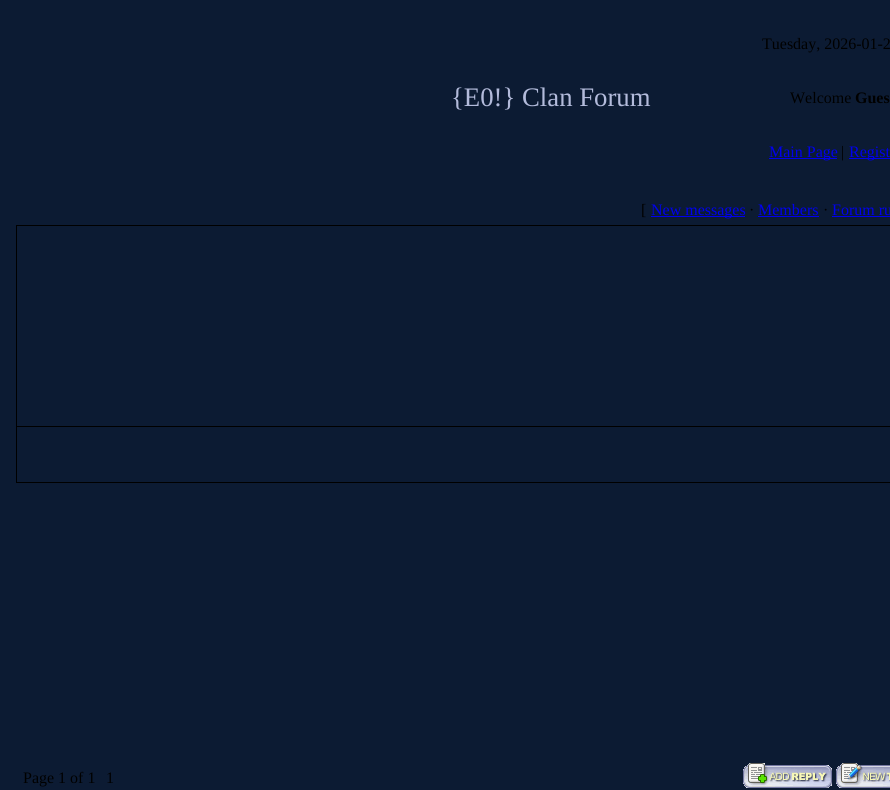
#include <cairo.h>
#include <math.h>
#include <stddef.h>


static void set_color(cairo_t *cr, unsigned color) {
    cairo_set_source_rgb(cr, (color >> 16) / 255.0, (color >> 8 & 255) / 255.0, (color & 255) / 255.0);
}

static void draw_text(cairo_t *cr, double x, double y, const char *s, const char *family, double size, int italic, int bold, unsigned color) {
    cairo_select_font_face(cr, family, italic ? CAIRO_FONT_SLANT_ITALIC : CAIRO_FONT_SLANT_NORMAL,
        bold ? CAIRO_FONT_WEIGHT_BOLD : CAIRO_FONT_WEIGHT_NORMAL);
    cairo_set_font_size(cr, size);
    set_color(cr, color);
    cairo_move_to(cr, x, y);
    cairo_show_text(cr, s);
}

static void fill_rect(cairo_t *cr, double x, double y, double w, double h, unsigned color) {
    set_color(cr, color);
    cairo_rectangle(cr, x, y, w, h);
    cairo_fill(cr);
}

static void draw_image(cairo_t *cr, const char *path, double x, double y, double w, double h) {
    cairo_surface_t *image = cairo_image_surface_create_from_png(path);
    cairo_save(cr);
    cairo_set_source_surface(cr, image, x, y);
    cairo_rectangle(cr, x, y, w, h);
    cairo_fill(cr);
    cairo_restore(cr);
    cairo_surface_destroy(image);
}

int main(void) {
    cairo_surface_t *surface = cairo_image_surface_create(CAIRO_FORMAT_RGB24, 890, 790);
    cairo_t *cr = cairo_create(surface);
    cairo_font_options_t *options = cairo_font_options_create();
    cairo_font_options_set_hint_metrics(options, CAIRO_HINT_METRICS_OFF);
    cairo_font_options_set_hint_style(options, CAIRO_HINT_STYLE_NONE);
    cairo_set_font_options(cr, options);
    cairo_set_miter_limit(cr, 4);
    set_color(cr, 0x0C1B33);
    cairo_paint(cr);
    draw_text(cr, 451, 106, "{E0!} Clan Forum", "Liberation Serif", 26.75, 0, 0, 0xB3BBDB);
    draw_text(cr, 762, 49, "Tuesday, 2026-01-2", "Liberation Serif", 16, 0, 0, 0x000000);
    draw_text(cr, 790, 103, "Welcome", "Liberation Serif", 16, 0, 0, 0x000000);
    draw_text(cr, 855, 103, "Gues", "Liberation Serif", 16, 0, 1, 0x000000);
    fill_rect(cr, 769, 158, 68, 1, 0x0000EE);
    draw_text(cr, 769, 157, "Main Page", "Liberation Serif", 16, 0, 0, 0x0000EE);
    draw_text(cr, 841, 157, "|", "Liberation Serif", 16, 0, 0, 0x000000);
    fill_rect(cr, 849, 158, 41, 1, 0x0000EE);
    draw_text(cr, 849, 157, "Regist", "Liberation Serif", 16, 0, 0, 0x0000EE);
    draw_text(cr, 641, 215, "[", "Liberation Serif", 16, 0, 0, 0x000000);
    fill_rect(cr, 651, 216, 94, 1, 0x0000EE);
    draw_text(cr, 651, 215, "New messages", "Liberation Serif", 16, 0, 0, 0x0000EE);
    draw_text(cr, 749, 215, "·", "Liberation Serif", 16, 0, 0, 0x000000);
    draw_text(cr, 758, 215, "Members", "Liberation Serif", 16, 0, 0, 0x0000EE);
    fill_rect(cr, 758, 216, 61, 1, 0x0000EE);
    draw_text(cr, 823, 215, "·", "Liberation Serif", 16, 0, 0, 0x000000);
    draw_text(cr, 832, 215, "Forum ru", "Liberation Serif", 16, 0, 0, 0x0000EE);
    fill_rect(cr, 832, 216, 58, 1, 0x0000EE);
    cairo_rectangle(cr, 16.5, 225.5, 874, 201);
    set_color(cr, 0x000000);
    cairo_set_line_width(cr, 1);
    cairo_stroke(cr);
    fill_rect(cr, 16, 482, 874, 1, 0x000000);
    fill_rect(cr, 16, 427, 1, 56, 0x000000);
    draw_text(cr, 23, 783, "Page 1 of 1", "Liberation Serif", 16, 0, 0, 0x000000);
    draw_text(cr, 106, 783, "1", "Liberation Serif", 16, 0, 0, 0x000000);
    draw_image(cr, "assets/img1.png", 743, 763, 89, 25);
    draw_image(cr, "assets/img2.png", 836, 763, 54, 25);
    cairo_surface_write_to_png(surface, "output.png");
    cairo_font_options_destroy(options);
    cairo_destroy(cr);
    cairo_surface_destroy(surface);
    return 0;
}
